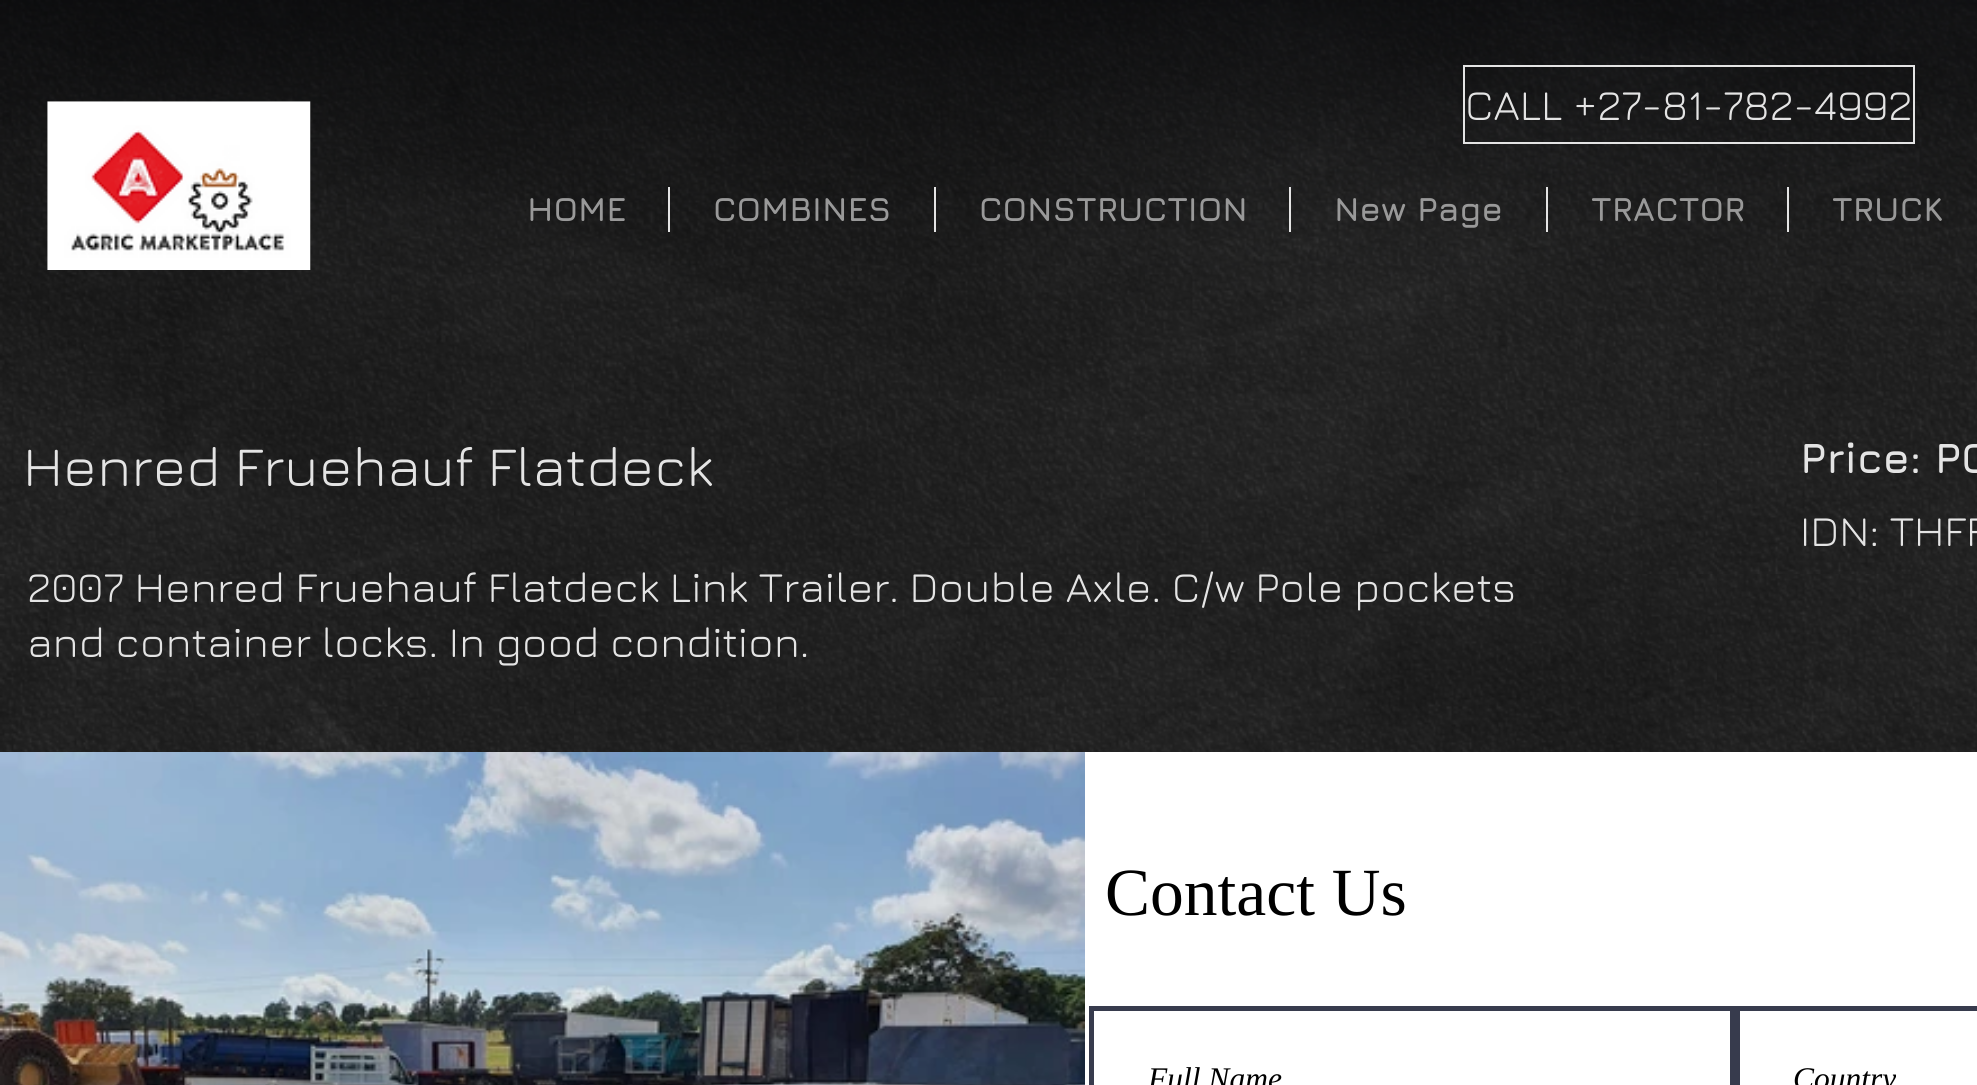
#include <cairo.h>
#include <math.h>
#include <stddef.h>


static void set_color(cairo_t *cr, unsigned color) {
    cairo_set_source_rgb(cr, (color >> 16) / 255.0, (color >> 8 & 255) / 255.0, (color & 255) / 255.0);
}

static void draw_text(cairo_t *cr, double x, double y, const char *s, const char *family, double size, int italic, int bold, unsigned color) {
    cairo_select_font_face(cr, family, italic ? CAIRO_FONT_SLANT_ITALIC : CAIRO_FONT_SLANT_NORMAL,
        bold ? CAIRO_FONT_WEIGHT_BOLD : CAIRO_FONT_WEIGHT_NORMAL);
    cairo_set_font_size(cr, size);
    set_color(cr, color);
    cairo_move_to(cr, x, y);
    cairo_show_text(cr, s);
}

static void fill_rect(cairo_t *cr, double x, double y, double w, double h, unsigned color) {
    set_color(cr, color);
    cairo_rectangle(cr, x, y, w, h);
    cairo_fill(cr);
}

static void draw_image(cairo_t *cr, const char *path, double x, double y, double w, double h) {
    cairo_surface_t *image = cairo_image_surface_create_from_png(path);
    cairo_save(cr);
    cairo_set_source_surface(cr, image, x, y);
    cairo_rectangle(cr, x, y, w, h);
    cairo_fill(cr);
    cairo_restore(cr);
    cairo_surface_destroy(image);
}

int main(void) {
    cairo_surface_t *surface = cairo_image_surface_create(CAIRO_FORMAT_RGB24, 1977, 1085);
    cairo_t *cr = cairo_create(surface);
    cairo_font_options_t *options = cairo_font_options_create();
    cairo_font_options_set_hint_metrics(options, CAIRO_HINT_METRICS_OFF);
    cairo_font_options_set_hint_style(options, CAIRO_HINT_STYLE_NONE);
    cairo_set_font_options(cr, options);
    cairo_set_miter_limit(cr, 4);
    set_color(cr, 0x000000);
    cairo_paint(cr);
    draw_image(cr, "assets/img1.png", 0, 0, 1977, 752);
    draw_image(cr, "assets/img2.png", 47, 101, 264, 169);
    cairo_rectangle(cr, 1464, 66, 450, 77);
    set_color(cr, 0xE4E4E4);
    cairo_stroke(cr);
    draw_text(cr, 1465, 120, "CALL +27-81-782-4992", "Jura", 42.75, 0, 0, 0xE4E4E4);
    draw_text(cr, 527, 221, "HOME", "Jura", 33.75, 0, 1, 0x999999);
    fill_rect(cr, 668, 187, 2, 45, 0xE4E4E4);
    draw_text(cr, 713, 221, "COMBINES", "Jura", 33.75, 0, 1, 0x999999);
    fill_rect(cr, 934, 187, 2, 45, 0xE4E4E4);
    draw_text(cr, 979, 221, "CONSTRUCTION", "Jura", 33.75, 0, 1, 0x999999);
    fill_rect(cr, 1289, 187, 2, 45, 0xE4E4E4);
    draw_text(cr, 1334, 221, "New Page", "Jura", 33.75, 0, 1, 0x999999);
    fill_rect(cr, 1546, 187, 2, 45, 0xE4E4E4);
    draw_text(cr, 1591, 221, "TRACTOR", "Jura", 33.75, 0, 1, 0x999999);
    fill_rect(cr, 1787, 187, 2, 45, 0xE4E4E4);
    draw_text(cr, 1832, 221, "TRUCK", "Jura", 33.75, 0, 1, 0x999999);
    draw_text(cr, 23, 486, "Henred Fruehauf Flatdeck", "Jura", 56.25, 0, 0, 0xE4E4E4);
    draw_text(cr, 1800, 473, "Price: PO", "Jura", 42.75, 0, 1, 0xE4E4E4);
    draw_text(cr, 1800, 546, "IDN: THFF", "Jura", 42.75, 0, 0, 0xE4E4E4);
    draw_text(cr, 27, 602, "2007 Henred Fruehauf Flatdeck Link Trailer. Double Axle. C/w Pole pockets", "Jura", 42.75, 0, 0, 0xE4E4E4);
    draw_text(cr, 27, 657, "and container locks. In good condition.", "Jura", 42.75, 0, 0, 0xE4E4E4);
    draw_image(cr, "assets/img3.png", 0, 752, 1085, 333);
    fill_rect(cr, 1085, 752, 892, 333, 0xFFFFFF);
    draw_text(cr, 1105, 915, "Contact Us", "Liberation Serif", 67.5, 0, 0, 0x000000);
    cairo_rectangle(cr, 1091.5, 1008.5, 641, 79);
    set_color(cr, 0x373B4D);
    cairo_set_line_width(cr, 5);
    cairo_stroke(cr);
    draw_text(cr, 1148, 1089, "Full Name", "Liberation Serif", 31.5, 1, 0, 0x000000);
    cairo_rectangle(cr, 1737.5, 1008.5, 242, 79);
    set_color(cr, 0x373B4D);
    cairo_stroke(cr);
    draw_text(cr, 1793, 1089, "Country", "Liberation Serif", 31.5, 1, 0, 0x000000);
    cairo_surface_write_to_png(surface, "output.png");
    cairo_font_options_destroy(options);
    cairo_destroy(cr);
    cairo_surface_destroy(surface);
    return 0;
}
